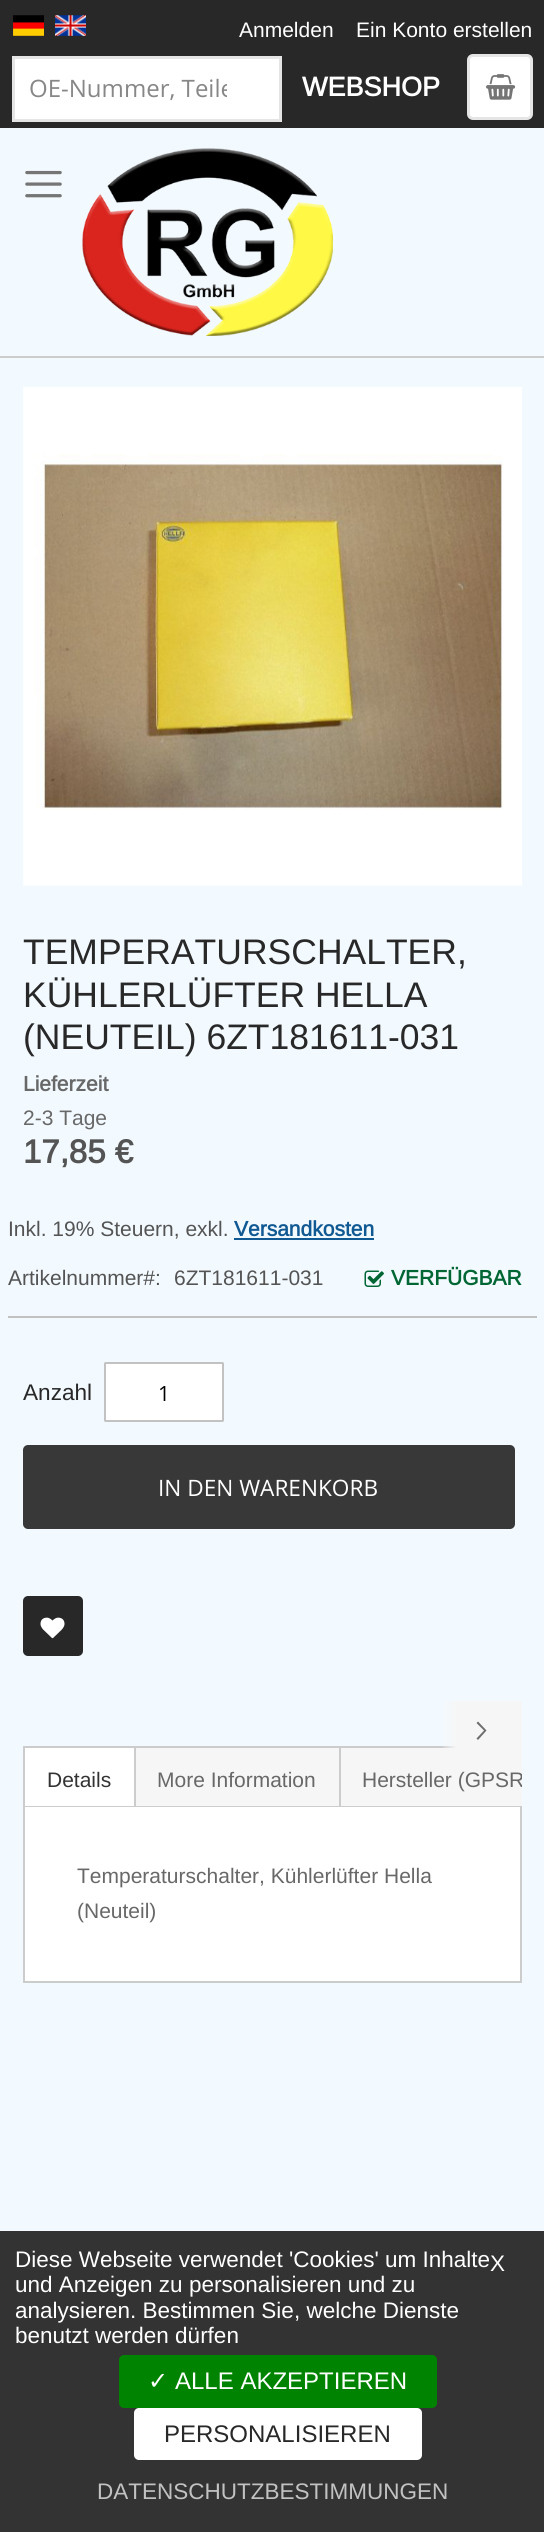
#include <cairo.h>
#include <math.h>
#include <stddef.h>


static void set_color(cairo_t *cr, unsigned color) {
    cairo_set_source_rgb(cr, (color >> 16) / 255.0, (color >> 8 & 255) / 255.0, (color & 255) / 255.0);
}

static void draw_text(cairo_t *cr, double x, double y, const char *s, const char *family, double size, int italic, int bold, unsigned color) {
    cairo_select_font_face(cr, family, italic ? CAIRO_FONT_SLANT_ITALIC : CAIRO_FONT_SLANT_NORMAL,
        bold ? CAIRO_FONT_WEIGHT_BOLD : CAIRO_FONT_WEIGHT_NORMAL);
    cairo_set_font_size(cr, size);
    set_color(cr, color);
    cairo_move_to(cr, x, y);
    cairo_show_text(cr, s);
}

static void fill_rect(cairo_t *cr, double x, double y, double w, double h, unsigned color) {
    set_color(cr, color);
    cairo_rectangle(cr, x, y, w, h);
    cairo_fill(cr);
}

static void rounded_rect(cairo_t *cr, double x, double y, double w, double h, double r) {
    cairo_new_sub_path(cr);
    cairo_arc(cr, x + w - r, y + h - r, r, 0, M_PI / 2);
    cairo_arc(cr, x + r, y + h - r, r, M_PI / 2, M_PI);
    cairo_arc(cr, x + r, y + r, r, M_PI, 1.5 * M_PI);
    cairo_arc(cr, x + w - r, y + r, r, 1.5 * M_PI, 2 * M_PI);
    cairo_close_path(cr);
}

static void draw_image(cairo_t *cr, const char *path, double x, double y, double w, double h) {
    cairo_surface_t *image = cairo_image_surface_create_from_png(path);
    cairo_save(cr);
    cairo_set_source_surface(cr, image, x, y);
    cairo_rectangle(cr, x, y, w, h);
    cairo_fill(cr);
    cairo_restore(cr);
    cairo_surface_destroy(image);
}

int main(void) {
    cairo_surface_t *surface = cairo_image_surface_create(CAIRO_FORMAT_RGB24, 544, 2532);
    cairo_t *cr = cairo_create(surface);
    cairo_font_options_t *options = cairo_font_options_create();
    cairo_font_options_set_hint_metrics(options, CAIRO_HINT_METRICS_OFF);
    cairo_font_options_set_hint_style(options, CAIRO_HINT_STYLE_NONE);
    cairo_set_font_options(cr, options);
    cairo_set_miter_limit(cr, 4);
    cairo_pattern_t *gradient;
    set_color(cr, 0xF3FAFF);
    cairo_paint(cr);
    fill_rect(cr, 0, 356, 544, 2, 0xCCCCCC);
    fill_rect(cr, 0, 0, 544, 128, 0x282828);
    draw_image(cr, "assets/img1.png", 13, 15, 31, 21);
    draw_image(cr, "assets/img2.png", 55, 15, 31, 21);
    draw_text(cr, 239, 37, "Anmelden", "Arimo", 21, 0, 0, 0xFFFFFF);
    draw_text(cr, 356, 37, "Ein Konto erstellen", "Arimo", 21, 0, 0, 0xFFFFFF);
    cairo_rectangle(cr, 13.5, 57.5, 267, 63);
    cairo_fill_preserve(cr);
    set_color(cr, 0xE5E5E5);
    cairo_set_line_width(cr, 3);
    cairo_stroke(cr);
    cairo_save(cr);
    cairo_rectangle(cr, 29, 72, 198, 33);
    cairo_clip(cr);
    draw_text(cr, 29, 97, "OE-Nummer, Teile", "Open Sans", 24, 0, 0, 0x878787);
    cairo_restore(cr);
    draw_text(cr, 302, 96, "WEBSHOP", "Arimo", 27, 0, 1, 0xFFFFFF);
    rounded_rect(cr, 468.5, 55.5, 63, 63, 4.5);
    cairo_fill_preserve(cr);
    set_color(cr, 0xE5E5E5);
    cairo_stroke(cr);
    draw_image(cr, "assets/img3.png", 486, 74, 30, 26);
    draw_image(cr, "assets/img4.png", 25, 170, 37, 28);
    draw_image(cr, "assets/img5.png", 82, 148, 251, 188);
    draw_image(cr, "assets/img6.png", 23, 387, 499, 499);
    draw_text(cr, 23, 964, "TEMPERATURSCHALTER,", "Arimo", 35.5, 0, 0, 0x282828);
    draw_text(cr, 23, 1007, "KÜHLERLÜFTER HELLA", "Arimo", 35.5, 0, 0, 0x282828);
    draw_text(cr, 23, 1049, "(NEUTEIL) 6ZT181611-031", "Arimo", 35.5, 0, 0, 0x282828);
    draw_text(cr, 23, 1091, "Lieferzeit", "Arimo", 21, 0, 1, 0x686868);
    draw_text(cr, 23, 1125, "2-3 Tage", "Arimo", 21, 0, 0, 0x686868);
    fill_rect(cr, 8, 1316, 529, 2, 0xC1C1C1);
    draw_text(cr, 23, 1163, "17,85 €", "Arimo", 33, 0, 1, 0x545454);
    draw_text(cr, 8, 1236, "Inkl. 19% Steuern, exkl.", "Arimo", 21, 0, 0, 0x545454);
    draw_text(cr, 234, 1236, "Versandkosten", "Arimo", 21, 0, 1, 0x115993);
    fill_rect(cr, 234, 1238, 140, 2, 0x115993);
    draw_text(cr, 8, 1285, "Artikelnummer#:", "Arimo", 21, 0, 0, 0x545454);
    draw_text(cr, 174, 1285, "6ZT181611-031", "Arimo", 21, 0, 0, 0x545454);
    draw_image(cr, "assets/img7.png", 364, 1270, 20, 17);
    draw_text(cr, 391, 1285, "VERFÜGBAR", "Arimo", 21, 0, 1, 0x006634);
    draw_text(cr, 23, 1400, "Anzahl", "Arimo", 22.6, 0, 0, 0x282828);
    set_color(cr, 0xFFFFFF);
    rounded_rect(cr, 105, 1363, 118, 58, 0.5);
    cairo_fill_preserve(cr);
    set_color(cr, 0xC2C2C2);
    cairo_set_line_width(cr, 2);
    cairo_stroke(cr);
    draw_text(cr, 158, 1401, "1", "Open Sans", 21, 0, 0, 0x000000);
    set_color(cr, 0x383838);
    rounded_rect(cr, 23, 1445, 492, 84, 5);
    cairo_fill(cr);
    draw_text(cr, 158, 1496, "IN DEN WARENKORB", "Open Sans", 22.6, 0, 0, 0xFFFFFF);
    set_color(cr, 0x282828);
    rounded_rect(cr, 23, 1596, 60, 60, 5);
    cairo_fill(cr);
    draw_image(cr, "assets/img8.png", 40, 1617, 25, 22);
    fill_rect(cr, 23, 1746, 433, 2, 0xCCCCCC);
    gradient = cairo_pattern_create_linear(441, 1731, 522, 1731);
    cairo_pattern_add_color_stop_rgba(gradient, 0, 0.965, 0.965, 0.965, 0);
    cairo_pattern_add_color_stop_rgba(gradient, 0.19, 0.965, 0.965, 0.965, 1);
    cairo_set_source(cr, gradient);
    cairo_pattern_destroy(gradient);
    cairo_rectangle(cr, 442, 1701, 80, 47);
    cairo_fill(cr);
    set_color(cr, 0x6D6D6D);
    cairo_new_path(cr);
    cairo_move_to(cr, 486.5, 1730.5);
    cairo_line_to(cr, 478, 1721.5);
    cairo_line_to(cr, 476.5, 1723);
    cairo_line_to(cr, 484, 1730.5);
    cairo_line_to(cr, 476.5, 1738.5);
    cairo_line_to(cr, 478, 1740);
    cairo_close_path(cr);
    cairo_fill(cr);
    set_color(cr, 0xFFFFFF);
    cairo_rectangle(cr, 24, 1806, 497, 176);
    cairo_fill_preserve(cr);
    set_color(cr, 0xCCCCCC);
    cairo_stroke(cr);
    fill_rect(cr, 25, 1748, 109, 58, 0xFFFFFF);
    fill_rect(cr, 23, 1746, 2, 60, 0xCCCCCC);
    draw_text(cr, 47, 1787, "Details", "Arimo", 21, 0, 0, 0x333333);
    fill_rect(cr, 136, 1748, 203, 58, 0xF6F6F6);
    fill_rect(cr, 134, 1746, 2, 60, 0xCCCCCC);
    draw_text(cr, 157, 1787, "More Information", "Arimo", 21, 0, 0, 0x686868);
    fill_rect(cr, 341, 1748, 181, 58, 0xF6F6F6);
    fill_rect(cr, 339, 1746, 2, 60, 0xCCCCCC);
    cairo_save(cr);
    cairo_rectangle(cr, 23, 1746, 499, 60);
    cairo_clip(cr);
    draw_text(cr, 362, 1787, "Hersteller (GPSR", "Arimo", 21, 0, 0, 0x686868);
    cairo_restore(cr);
    draw_text(cr, 77, 1883, "Temperaturschalter, Kühlerlüfter Hella", "Arimo", 21, 0, 0, 0x686868);
    draw_text(cr, 77, 1918, "(Neuteil)", "Arimo", 21, 0, 0, 0x686868);
    fill_rect(cr, 0, 2231, 544, 301, 0x333333);
    draw_text(cr, 15, 2267, "Diese Webseite verwendet 'Cookies' um Inhalte", "Liberation Sans", 22.5, 0, 0, 0xFFFFFF);
    draw_text(cr, 15, 2292, "und Anzeigen zu personalisieren und zu", "Liberation Sans", 22.5, 0, 0, 0xFFFFFF);
    draw_text(cr, 15, 2318, "analysieren. Bestimmen Sie, welche Dienste", "Liberation Sans", 22.5, 0, 0, 0xFFFFFF);
    draw_text(cr, 15, 2343, "benutzt werden dürfen", "Liberation Sans", 22.5, 0, 0, 0xFFFFFF);
    draw_text(cr, 490, 2271, "X", "Liberation Sans", 22.5, 0, 0, 0xFFFFFF);
    set_color(cr, 0x008300);
    rounded_rect(cr, 119, 2355, 318, 53, 5);
    cairo_fill(cr);
    draw_text(cr, 148, 2389, "✓", "DejaVu Sans", 24, 0, 0, 0xFFFFFF);
    draw_text(cr, 175, 2389, "ALLE AKZEPTIEREN", "Liberation Sans", 24, 0, 0, 0xFFFFFF);
    rounded_rect(cr, 134, 2408, 288, 52, 5);
    cairo_fill(cr);
    draw_text(cr, 164, 2442, "PERSONALISIEREN", "Liberation Sans", 24, 0, 0, 0x282828);
    draw_text(cr, 97, 2499, "DATENSCHUTZBESTIMMUNGEN", "Liberation Sans", 22.5, 0, 0, 0xC2C2C2);
    cairo_surface_write_to_png(surface, "output.png");
    cairo_font_options_destroy(options);
    cairo_destroy(cr);
    cairo_surface_destroy(surface);
    return 0;
}
